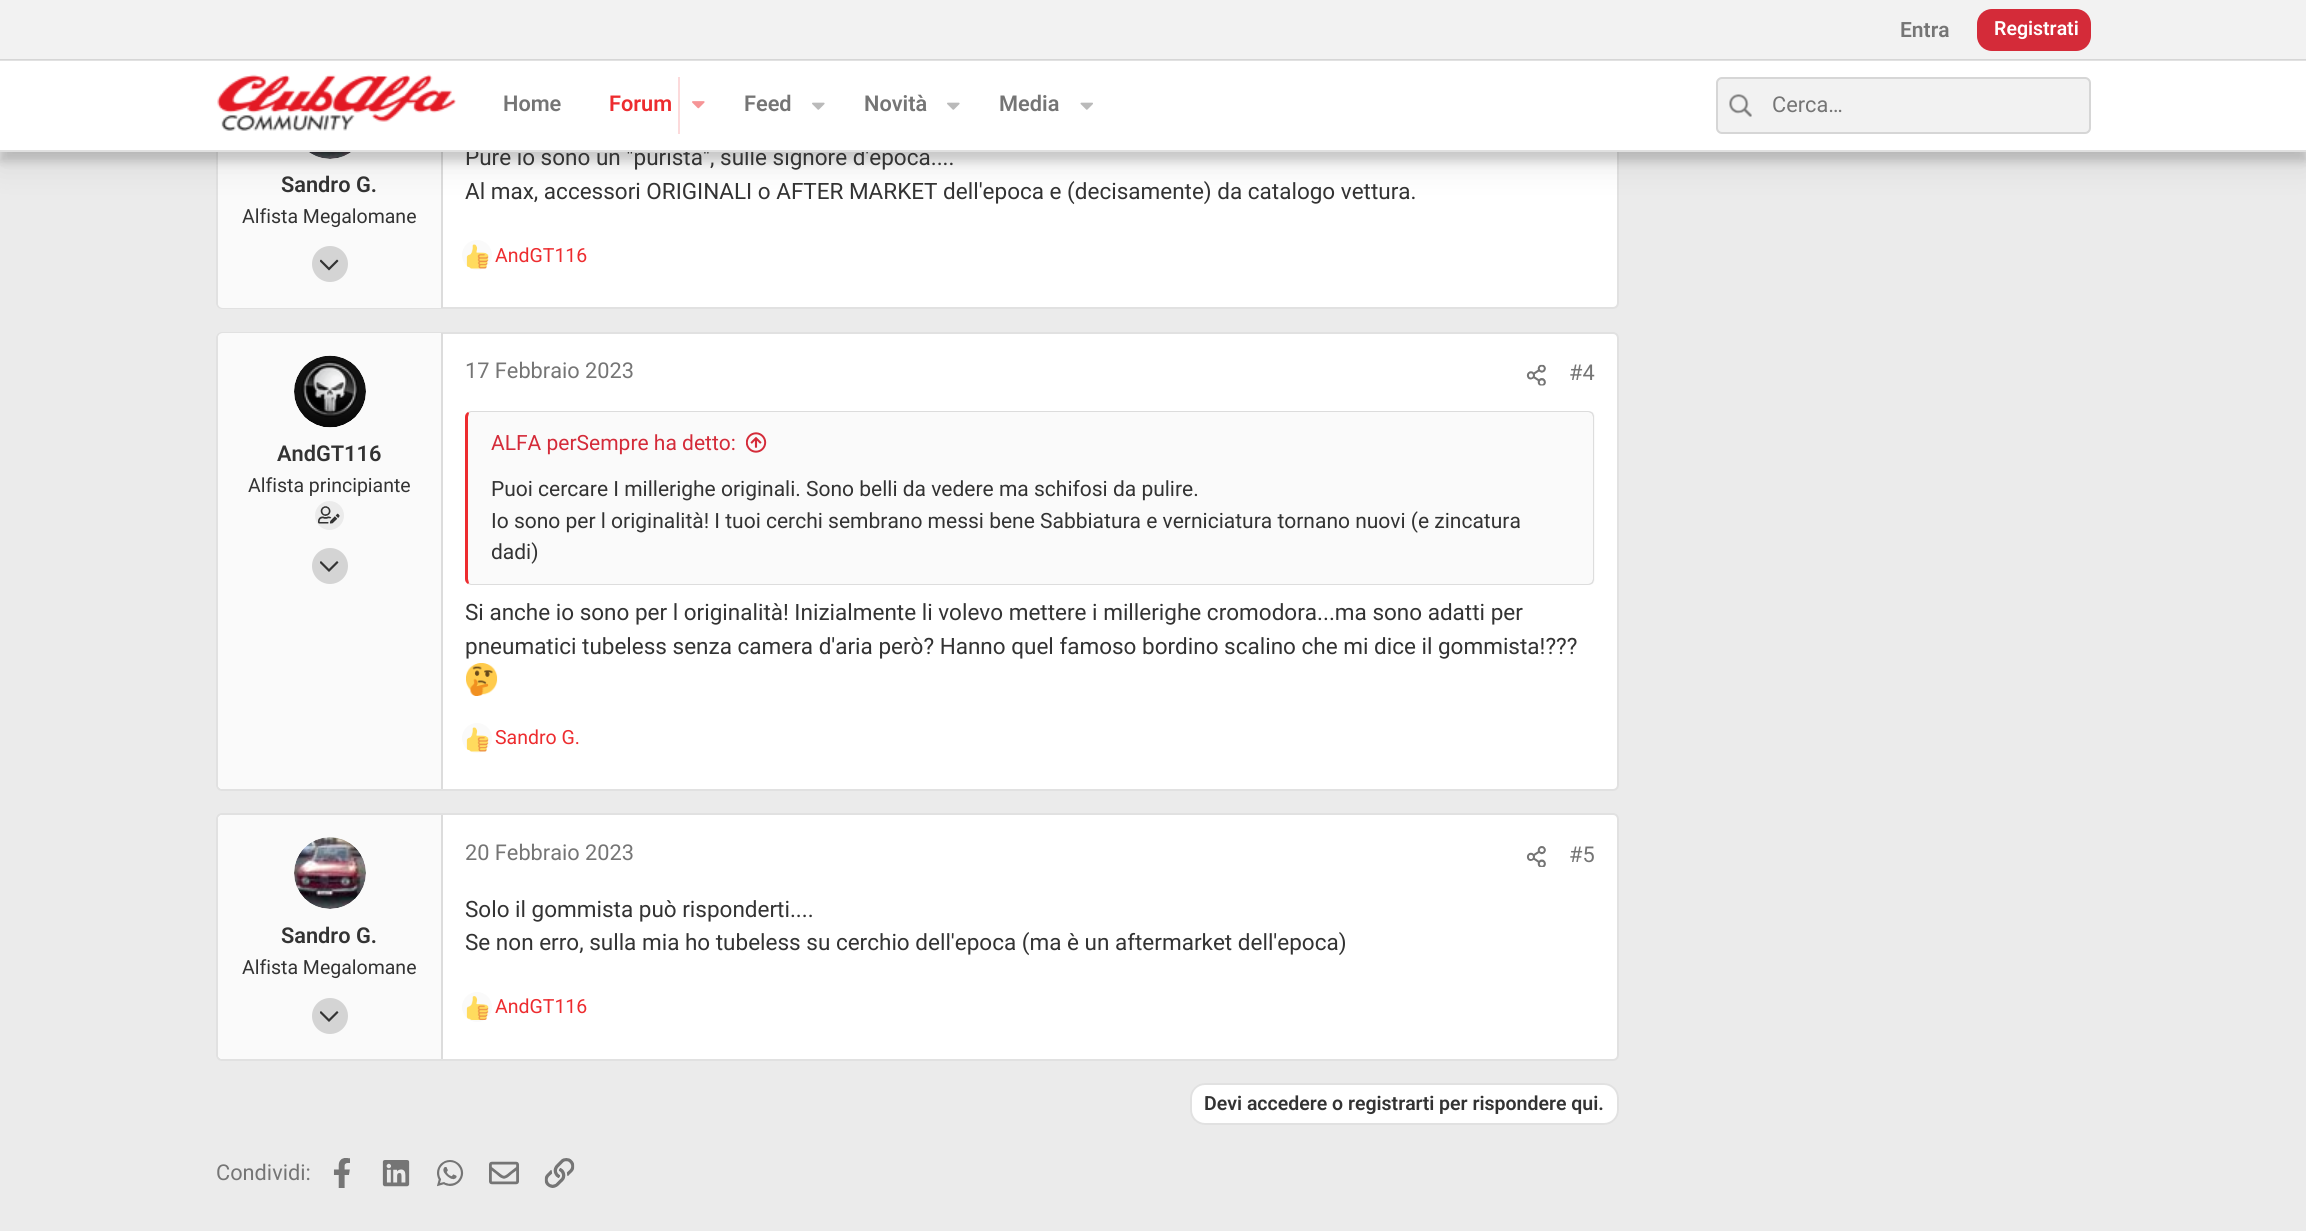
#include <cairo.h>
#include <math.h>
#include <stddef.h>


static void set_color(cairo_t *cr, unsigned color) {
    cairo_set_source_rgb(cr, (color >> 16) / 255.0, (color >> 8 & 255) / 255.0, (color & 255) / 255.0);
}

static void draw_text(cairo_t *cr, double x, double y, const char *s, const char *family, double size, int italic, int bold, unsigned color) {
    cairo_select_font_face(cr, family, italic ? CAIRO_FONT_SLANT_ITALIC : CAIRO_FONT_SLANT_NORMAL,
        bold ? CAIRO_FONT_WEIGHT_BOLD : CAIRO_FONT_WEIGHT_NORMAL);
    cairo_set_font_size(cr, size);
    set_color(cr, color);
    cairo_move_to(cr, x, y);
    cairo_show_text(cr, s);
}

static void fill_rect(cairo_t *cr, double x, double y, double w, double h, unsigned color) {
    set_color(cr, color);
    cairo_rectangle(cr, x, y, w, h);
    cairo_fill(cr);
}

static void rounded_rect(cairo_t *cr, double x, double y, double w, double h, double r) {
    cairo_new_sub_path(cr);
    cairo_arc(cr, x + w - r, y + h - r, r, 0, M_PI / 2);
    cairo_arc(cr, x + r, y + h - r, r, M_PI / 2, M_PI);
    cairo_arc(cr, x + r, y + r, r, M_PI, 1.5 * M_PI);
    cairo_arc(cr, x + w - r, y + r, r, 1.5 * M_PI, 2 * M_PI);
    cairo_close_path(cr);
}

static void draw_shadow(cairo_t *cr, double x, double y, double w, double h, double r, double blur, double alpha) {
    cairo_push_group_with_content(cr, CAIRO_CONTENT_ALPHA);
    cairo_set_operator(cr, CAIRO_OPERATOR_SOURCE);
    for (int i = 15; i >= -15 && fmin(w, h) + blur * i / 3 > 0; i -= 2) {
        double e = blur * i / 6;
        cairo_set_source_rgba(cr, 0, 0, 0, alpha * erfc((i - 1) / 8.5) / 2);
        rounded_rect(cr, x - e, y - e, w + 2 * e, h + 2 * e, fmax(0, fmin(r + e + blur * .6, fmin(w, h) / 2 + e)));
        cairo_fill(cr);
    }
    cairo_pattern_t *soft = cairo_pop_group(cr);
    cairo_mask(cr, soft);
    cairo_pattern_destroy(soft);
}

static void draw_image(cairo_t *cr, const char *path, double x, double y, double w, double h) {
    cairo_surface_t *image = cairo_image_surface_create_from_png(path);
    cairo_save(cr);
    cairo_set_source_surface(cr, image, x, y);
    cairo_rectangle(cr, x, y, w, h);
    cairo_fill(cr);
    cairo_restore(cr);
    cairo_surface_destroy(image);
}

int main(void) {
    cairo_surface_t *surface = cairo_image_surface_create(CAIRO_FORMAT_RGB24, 2306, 1231);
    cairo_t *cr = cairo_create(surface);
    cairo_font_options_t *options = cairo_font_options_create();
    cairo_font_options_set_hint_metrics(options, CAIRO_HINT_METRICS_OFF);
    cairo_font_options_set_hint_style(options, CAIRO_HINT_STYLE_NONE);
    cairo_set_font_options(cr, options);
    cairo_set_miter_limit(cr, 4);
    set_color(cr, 0xEBEBEB);
    cairo_paint(cr);
    set_color(cr, 0xFFFFFF);
    rounded_rect(cr, 216, 63, 1403, 246, 6);
    cairo_fill(cr);
    rounded_rect(cr, 217, 64, 1401, 244, 5);
    cairo_set_source_rgba(cr, 0, 0, 0, 0.12);
    cairo_stroke(cr);
    set_color(cr, 0xFAFAFA);
    cairo_new_path(cr);
    cairo_move_to(cr, 223, 65);
    cairo_line_to(cr, 443, 65);
    cairo_line_to(cr, 443, 308);
    cairo_line_to(cr, 223, 308);
    cairo_curve_to(cr, 220, 308, 218, 306, 218, 303);
    cairo_line_to(cr, 218, 70);
    cairo_curve_to(cr, 218, 67, 220, 65, 223, 65);
    cairo_close_path(cr);
    cairo_fill(cr);
    fill_rect(cr, 441, 152, 2, 156, 0xDCDCDC);
    set_color(cr, 0xFFFFFF);
    cairo_arc(cr, 330, 123, 36, 0, 2 * M_PI);
    cairo_fill(cr);
    draw_image(cr, "assets/img6.png", 309, 152, 42, 7);
    set_color(cr, 0x000000);
    draw_shadow(cr, 0, 69, 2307, 92, 0, 4.5, 0.15);
    draw_shadow(cr, 0, 75, 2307, 92, 0, 15, 0.09);
    fill_rect(cr, 0, 0, 2306, 60, 0xF2F2F2);
    draw_text(cr, 465, 165, "Pure io sono un \"purista\", sulle signore d'epoca....", "Roboto", 22.5, 0, 0, 0x333333);
    fill_rect(cr, 0, 60, 2306, 90, 0xFFFFFF);
    cairo_set_source_rgba(cr, 0, 0, 0, 0.12);
    cairo_rectangle(cr, 0, 59, 2306, 2);
    cairo_fill(cr);
    draw_text(cr, 1900, 37, "Entra", "Roboto SemiBold", 21, 0, 0, 0x757575);
    set_color(cr, 0xD42B39);
    rounded_rect(cr, 1977, 9, 114, 42, 15);
    cairo_fill(cr);
    draw_text(cr, 1994, 35, "Registrati", "Roboto SemiBold", 19.5, 0, 0, 0xFFFFFF);
    fill_rect(cr, 0, 150, 2306, 2, 0xE0E0E0);
    draw_image(cr, "assets/img1.png", 217, 74, 239, 57);
    draw_text(cr, 503, 111, "Home", "Roboto SemiBold", 21.75, 0, 0, 0x757575);
    draw_text(cr, 609, 111, "Forum", "Roboto SemiBold", 21.75, 0, 0, 0xED2C2F);
    fill_rect(cr, 678, 77, 2, 57, 0xFCDADB);
    draw_image(cr, "assets/img2.png", 692, 101, 13, 8);
    draw_text(cr, 744, 111, "Feed", "Roboto SemiBold", 21.75, 0, 0, 0x757575);
    draw_image(cr, "assets/img3.png", 812, 102, 13, 8);
    draw_text(cr, 864, 111, "Novità", "Roboto SemiBold", 21.75, 0, 0, 0x757575);
    draw_image(cr, "assets/img3.png", 947, 102, 13, 8);
    draw_text(cr, 999, 111, "Media", "Roboto SemiBold", 21.75, 0, 0, 0x757575);
    draw_image(cr, "assets/img4.png", 1080, 102, 13, 8);
    set_color(cr, 0xF2F2F2);
    rounded_rect(cr, 1716, 77, 375, 57, 6);
    cairo_fill(cr);
    rounded_rect(cr, 1717, 78, 373, 55, 5);
    cairo_set_source_rgba(cr, 0, 0, 0, 0.12);
    cairo_stroke(cr);
    draw_image(cr, "assets/img5.png", 1729, 94, 23, 23);
    draw_text(cr, 1772, 112, "Cerca…", "Roboto", 21.75, 0, 0, 0x757575);
    draw_text(cr, 281, 192, "Sandro G.", "Roboto SemiBold", 21.75, 0, 0, 0x333333);
    draw_text(cr, 242, 223, "Alfista Megalomane", "Roboto", 19.5, 0, 0, 0x333333);
    set_color(cr, 0xD4D4D4);
    cairo_new_path(cr);
    cairo_arc(cr, 330, 264, 18, 0, 2 * M_PI);
    cairo_fill(cr);
    draw_image(cr, "assets/img7.png", 320, 259, 19, 12);
    draw_text(cr, 465, 199, "Al max, accessori ORIGINALI o AFTER MARKET dell'epoca e (decisamente) da catalogo vettura.", "Roboto", 22.5, 0, 0, 0x333333);
    set_color(cr, 0xFAFAFA);
    cairo_new_path(cr);
    cairo_arc(cr, 477, 255, 15, 0, 2 * M_PI);
    cairo_fill(cr);
    draw_image(cr, "assets/img8.png", 466, 244, 23, 25);
    draw_text(cr, 495, 262, "AndGT116", "Roboto", 19.5, 0, 0, 0xED2C2F);
    set_color(cr, 0xFFFFFF);
    rounded_rect(cr, 216, 332, 1403, 459, 6);
    cairo_fill(cr);
    rounded_rect(cr, 217, 333, 1401, 457, 5);
    cairo_set_source_rgba(cr, 0, 0, 0, 0.12);
    cairo_stroke(cr);
    set_color(cr, 0xFAFAFA);
    cairo_new_path(cr);
    cairo_move_to(cr, 223, 333);
    cairo_line_to(cr, 443, 333);
    cairo_line_to(cr, 443, 789);
    cairo_line_to(cr, 223, 789);
    cairo_curve_to(cr, 220, 789, 218, 787, 218, 784);
    cairo_line_to(cr, 218, 338);
    cairo_curve_to(cr, 218, 335, 220, 333, 223, 333);
    cairo_close_path(cr);
    cairo_fill(cr);
    fill_rect(cr, 441, 333, 2, 456, 0xDCDCDC);
    set_color(cr, 0xFFFFFF);
    cairo_arc(cr, 330, 392, 36, 0, 2 * M_PI);
    cairo_fill(cr);
    draw_image(cr, "assets/img9.png", 294, 355, 72, 73);
    draw_text(cr, 277, 461, "AndGT116", "Roboto SemiBold", 21.75, 0, 0, 0x333333);
    draw_text(cr, 248, 492, "Alfista principiante", "Roboto", 19.5, 0, 0, 0x333333);
    set_color(cr, 0xEBEBEB);
    cairo_new_path(cr);
    cairo_arc(cr, 329.5, 515.5, 14.5, 0, 2 * M_PI);
    cairo_fill(cr);
    draw_image(cr, "assets/img10.png", 318, 506, 22, 18);
    set_color(cr, 0xD4D4D4);
    cairo_arc(cr, 330, 566, 18, 0, 2 * M_PI);
    cairo_fill(cr);
    draw_image(cr, "assets/img11.png", 320, 561, 19, 11);
    draw_text(cr, 465, 378, "17 Febbraio 2023", "Roboto", 21.75, 0, 0, 0x757575);
    draw_image(cr, "assets/img12.png", 1526, 364, 20, 22);
    draw_text(cr, 1569, 380, "#4", "Roboto", 21.75, 0, 0, 0x757575);
    set_color(cr, 0xFAFAFA);
    rounded_rect(cr, 465, 411, 1130, 174, 6);
    cairo_fill(cr);
    set_color(cr, 0xDCDCDC);
    cairo_new_path(cr);
    cairo_move_to(cr, 471, 411);
    cairo_line_to(cr, 468, 412);
    cairo_line_to(cr, 469, 413);
    cairo_line_to(cr, 471, 412);
    cairo_line_to(cr, 1588, 412);
    cairo_curve_to(cr, 1589, 412, 1591, 413, 1592, 414);
    cairo_line_to(cr, 1593, 413);
    cairo_curve_to(cr, 1592, 412, 1590, 411, 1588, 411);
    cairo_close_path(cr);
    cairo_fill(cr);
    cairo_set_source_rgba(cr, 0, 0, 0, 0.12);
    cairo_new_path(cr);
    cairo_move_to(cr, 1593, 413);
    cairo_line_to(cr, 1594, 416);
    cairo_line_to(cr, 1594, 580);
    cairo_line_to(cr, 1593, 583);
    cairo_line_to(cr, 1592, 582);
    cairo_line_to(cr, 1593, 579);
    cairo_line_to(cr, 1593, 417);
    cairo_line_to(cr, 1592, 414);
    cairo_close_path(cr);
    cairo_fill(cr);
    cairo_new_path(cr);
    cairo_move_to(cr, 471, 585);
    cairo_line_to(cr, 1588, 585);
    cairo_curve_to(cr, 1590, 585, 1592, 584, 1593, 583);
    cairo_line_to(cr, 1592, 582);
    cairo_curve_to(cr, 1591, 583, 1589, 584, 1588, 584);
    cairo_line_to(cr, 471, 584);
    cairo_line_to(cr, 469, 583);
    cairo_line_to(cr, 468, 584);
    cairo_close_path(cr);
    cairo_fill(cr);
    set_color(cr, 0xED2C2F);
    cairo_new_path(cr);
    cairo_move_to(cr, 465, 417);
    cairo_line_to(cr, 465, 579);
    cairo_curve_to(cr, 465, 581, 466, 583, 468, 584);
    cairo_line_to(cr, 469, 583);
    cairo_line_to(cr, 468, 579);
    cairo_line_to(cr, 468, 417);
    cairo_line_to(cr, 469, 413);
    cairo_line_to(cr, 468, 412);
    cairo_curve_to(cr, 466, 413, 465, 415, 465, 417);
    cairo_close_path(cr);
    cairo_fill(cr);
    draw_text(cr, 491, 450, "ALFA perSempre ha detto:", "Roboto", 21, 0, 0, 0xD42B39);
    draw_image(cr, "assets/img13.png", 746, 432, 21, 21);
    draw_text(cr, 491, 496, "Puoi cercare I millerighe originali. Sono belli da vedere ma schifosi da pulire.", "Roboto", 21, 0, 0, 0x333333);
    draw_text(cr, 491, 528, "Io sono per l originalità! I tuoi cerchi sembrano messi bene Sabbiatura e verniciatura tornano nuovi (e zincatura", "Roboto", 21, 0, 0, 0x333333);
    draw_text(cr, 491, 559, "dadi)", "Roboto", 21, 0, 0, 0x333333);
    draw_text(cr, 465, 620, "Si anche io sono per l originalità! Inizialmente li volevo mettere i millerighe cromodora...ma sono adatti per", "Roboto", 22.5, 0, 0, 0x333333);
    draw_text(cr, 465, 654, "pneumatici tubeless senza camera d'aria però? Hanno quel famoso bordino scalino che mi dice il gommista!?\077?", "Roboto", 22.5, 0, 0, 0x333333);
    draw_image(cr, "assets/img14.png", 466, 663, 32, 33);
    set_color(cr, 0xFAFAFA);
    cairo_arc(cr, 477, 738, 15, 0, 2 * M_PI);
    cairo_fill(cr);
    draw_image(cr, "assets/img8.png", 466, 727, 23, 25);
    draw_text(cr, 495, 744, "Sandro G.", "Roboto", 19.5, 0, 0, 0xED2C2F);
    set_color(cr, 0xFFFFFF);
    rounded_rect(cr, 216, 813, 1403, 248, 6);
    cairo_fill(cr);
    rounded_rect(cr, 217, 814, 1401, 246, 5);
    cairo_set_source_rgba(cr, 0, 0, 0, 0.12);
    cairo_stroke(cr);
    set_color(cr, 0xFAFAFA);
    cairo_new_path(cr);
    cairo_move_to(cr, 223, 815);
    cairo_line_to(cr, 443, 815);
    cairo_line_to(cr, 443, 1059);
    cairo_line_to(cr, 223, 1059);
    cairo_curve_to(cr, 220, 1059, 218, 1057, 218, 1054);
    cairo_line_to(cr, 218, 820);
    cairo_curve_to(cr, 218, 817, 220, 815, 223, 815);
    cairo_close_path(cr);
    cairo_fill(cr);
    fill_rect(cr, 441, 815, 2, 244, 0xDCDCDC);
    set_color(cr, 0xFFFFFF);
    cairo_arc(cr, 330, 873, 36, 0, 2 * M_PI);
    cairo_fill(cr);
    draw_image(cr, "assets/img15.png", 294, 837, 72, 72);
    draw_text(cr, 281, 943, "Sandro G.", "Roboto SemiBold", 21.75, 0, 0, 0x333333);
    draw_text(cr, 242, 974, "Alfista Megalomane", "Roboto", 19.5, 0, 0, 0x333333);
    set_color(cr, 0xD4D4D4);
    cairo_new_path(cr);
    cairo_arc(cr, 330, 1016, 18, 0, 2 * M_PI);
    cairo_fill(cr);
    draw_image(cr, "assets/img11.png", 320, 1011, 19, 11);
    draw_text(cr, 465, 860, "20 Febbraio 2023", "Roboto", 21.75, 0, 0, 0x757575);
    draw_image(cr, "assets/img16.png", 1526, 846, 20, 21);
    draw_text(cr, 1569, 862, "#5", "Roboto", 21.75, 0, 0, 0x757575);
    draw_text(cr, 465, 917, "Solo il gommista può risponderti....", "Roboto", 22.5, 0, 0, 0x333333);
    draw_text(cr, 465, 950, "Se non erro, sulla mia ho tubeless su cerchio dell'epoca (ma è un aftermarket dell'epoca)", "Roboto", 22.5, 0, 0, 0x333333);
    set_color(cr, 0xFAFAFA);
    cairo_new_path(cr);
    cairo_arc(cr, 477, 1007, 15, 0, 2 * M_PI);
    cairo_fill(cr);
    draw_image(cr, "assets/img17.png", 466, 996, 23, 24);
    draw_text(cr, 495, 1013, "AndGT116", "Roboto", 19.5, 0, 0, 0xED2C2F);
    set_color(cr, 0xFFFFFF);
    rounded_rect(cr, 1190, 1083, 429, 42, 15);
    cairo_fill(cr);
    rounded_rect(cr, 1191, 1084, 427, 40, 14);
    cairo_set_source_rgba(cr, 0, 0, 0, 0.12);
    cairo_stroke(cr);
    draw_text(cr, 1204, 1110, "Devi accedere o registrarti per rispondere qui.", "Roboto SemiBold", 19.5, 0, 0, 0x333333);
    draw_text(cr, 216, 1180, "Condividi:", "Roboto", 21.75, 0, 0, 0x757575);
    draw_image(cr, "assets/img18.png", 333, 1158, 17, 30);
    draw_image(cr, "assets/img19.png", 382, 1160, 28, 27);
    draw_image(cr, "assets/img20.png", 437, 1160, 27, 27);
    draw_image(cr, "assets/img21.png", 489, 1161, 30, 24);
    draw_image(cr, "assets/img22.png", 544, 1158, 31, 30);
    cairo_surface_write_to_png(surface, "output.png");
    cairo_font_options_destroy(options);
    cairo_destroy(cr);
    cairo_surface_destroy(surface);
    return 0;
}
